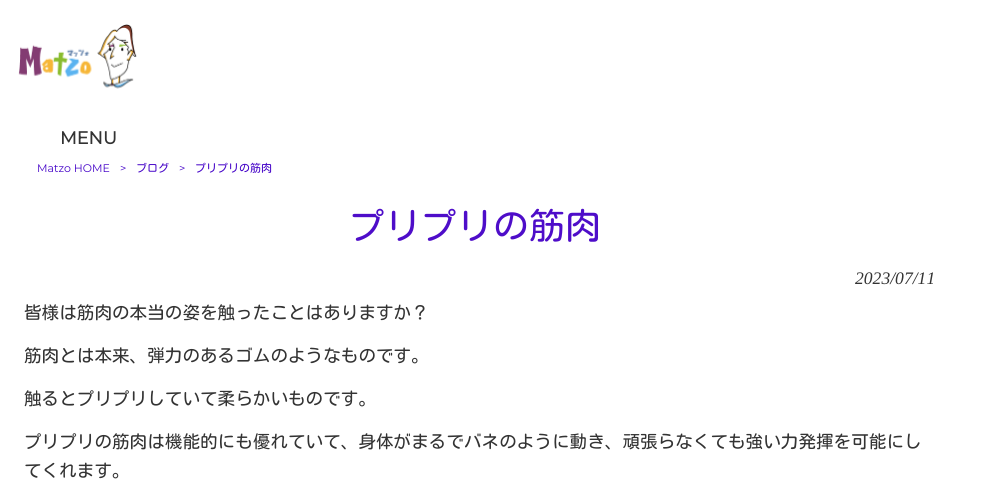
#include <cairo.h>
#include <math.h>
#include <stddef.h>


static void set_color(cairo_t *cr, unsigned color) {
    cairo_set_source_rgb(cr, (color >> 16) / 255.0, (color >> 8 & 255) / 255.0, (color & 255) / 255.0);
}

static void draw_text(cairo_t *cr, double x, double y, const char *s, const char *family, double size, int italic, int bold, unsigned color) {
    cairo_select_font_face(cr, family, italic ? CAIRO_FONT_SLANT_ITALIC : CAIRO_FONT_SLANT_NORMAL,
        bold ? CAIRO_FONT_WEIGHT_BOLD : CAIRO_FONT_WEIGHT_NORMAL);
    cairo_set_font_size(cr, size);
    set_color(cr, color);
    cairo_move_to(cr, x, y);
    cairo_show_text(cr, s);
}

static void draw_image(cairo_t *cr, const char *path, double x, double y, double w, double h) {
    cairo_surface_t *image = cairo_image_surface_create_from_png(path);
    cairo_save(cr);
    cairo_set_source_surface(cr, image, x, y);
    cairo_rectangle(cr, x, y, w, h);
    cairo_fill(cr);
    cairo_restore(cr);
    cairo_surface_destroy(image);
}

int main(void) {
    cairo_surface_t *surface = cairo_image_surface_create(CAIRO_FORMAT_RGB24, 988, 482);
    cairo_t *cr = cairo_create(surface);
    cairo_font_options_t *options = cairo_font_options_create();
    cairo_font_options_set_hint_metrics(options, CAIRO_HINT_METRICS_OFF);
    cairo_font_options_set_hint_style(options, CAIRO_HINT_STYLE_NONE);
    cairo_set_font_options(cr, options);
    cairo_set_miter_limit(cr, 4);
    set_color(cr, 0xFFFFFF);
    cairo_paint(cr);
    draw_image(cr, "assets/img1.png", 18, 24, 119, 65);
    draw_text(cr, 60, 144, "MENU", "Montserrat", 17.6, 0, 1, 0x333333);
    draw_text(cr, 37, 172, "Matzo HOME", "Montserrat Thin", 11, 0, 0, 0x4504C8);
    draw_text(cr, 120, 172, ">", "Montserrat Thin", 11, 0, 0, 0x4504C8);
    draw_text(cr, 136, 172, "ブログ", "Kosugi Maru", 11, 0, 0, 0x4504C8);
    draw_text(cr, 179, 172, ">", "Montserrat Thin", 11, 0, 0, 0x4504C8);
    draw_text(cr, 195, 172, "プリプリの筋肉", "Kosugi Maru", 11, 0, 0, 0x4504C8);
    draw_text(cr, 349, 239, "プリプリの筋肉", "Kosugi Maru", 36, 0, 0, 0x4E0DC9);
    draw_text(cr, 855, 284, "2023/07/11", "Liberation Serif", 17.6, 1, 0, 0x333333);
    draw_text(cr, 24, 319, "皆様は筋肉の本当の姿を触ったことはありますか？", "Kosugi Maru", 17.6, 0, 0, 0x333333);
    draw_text(cr, 24, 362, "筋肉とは本来、弾力のあるゴムのようなものです。", "Kosugi Maru", 17.6, 0, 0, 0x333333);
    draw_text(cr, 24, 405, "触るとプリプリしていて柔らかいものです。", "Kosugi Maru", 17.6, 0, 0, 0x333333);
    draw_text(cr, 24, 448, "プリプリの筋肉は機能的にも優れていて、身体がまるでバネのように動き、頑張らなくても強い力発揮を可能にし", "Kosugi Maru", 17.6, 0, 0, 0x333333);
    draw_text(cr, 24, 477, "てくれます。", "Kosugi Maru", 17.6, 0, 0, 0x333333);
    cairo_surface_write_to_png(surface, "output.png");
    cairo_font_options_destroy(options);
    cairo_destroy(cr);
    cairo_surface_destroy(surface);
    return 0;
}
